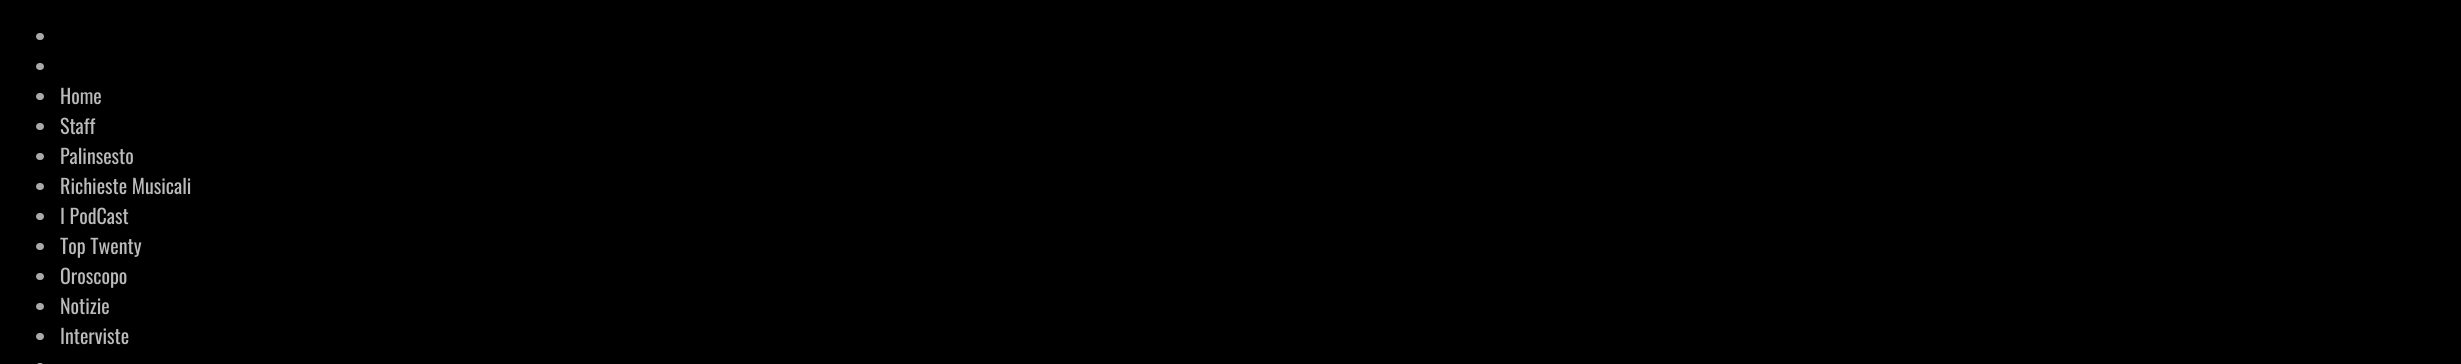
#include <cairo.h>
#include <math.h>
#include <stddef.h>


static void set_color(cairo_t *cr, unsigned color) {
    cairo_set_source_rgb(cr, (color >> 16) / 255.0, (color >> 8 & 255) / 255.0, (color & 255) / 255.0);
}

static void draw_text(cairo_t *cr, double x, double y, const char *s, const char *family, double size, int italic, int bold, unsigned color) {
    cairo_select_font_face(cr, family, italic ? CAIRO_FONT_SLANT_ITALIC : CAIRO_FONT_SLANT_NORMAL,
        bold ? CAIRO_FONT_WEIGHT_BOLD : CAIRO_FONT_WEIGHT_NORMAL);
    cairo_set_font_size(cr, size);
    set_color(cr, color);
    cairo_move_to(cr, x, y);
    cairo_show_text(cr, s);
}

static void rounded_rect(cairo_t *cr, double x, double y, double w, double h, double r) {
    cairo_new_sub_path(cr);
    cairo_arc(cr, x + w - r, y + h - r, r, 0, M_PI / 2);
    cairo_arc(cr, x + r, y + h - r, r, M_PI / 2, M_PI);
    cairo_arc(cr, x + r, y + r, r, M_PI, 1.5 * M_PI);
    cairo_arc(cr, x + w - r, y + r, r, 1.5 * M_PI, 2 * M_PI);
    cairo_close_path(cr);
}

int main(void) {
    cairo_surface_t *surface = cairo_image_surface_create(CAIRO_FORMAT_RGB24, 2461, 364);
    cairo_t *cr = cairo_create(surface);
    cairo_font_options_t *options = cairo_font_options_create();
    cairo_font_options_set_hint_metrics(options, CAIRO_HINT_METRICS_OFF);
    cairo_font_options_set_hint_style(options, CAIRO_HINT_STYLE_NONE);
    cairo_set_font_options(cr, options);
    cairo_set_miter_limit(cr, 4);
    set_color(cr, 0x000000);
    cairo_paint(cr);
    set_color(cr, 0xAAAAAA);
    rounded_rect(cr, 36, 33, 8, 7, 3.5);
    cairo_fill(cr);
    rounded_rect(cr, 36, 63, 8, 7, 3.5);
    cairo_fill(cr);
    rounded_rect(cr, 36, 93, 8, 7, 3.5);
    cairo_fill(cr);
    draw_text(cr, 60, 104, "Home", "Oswald", 20, 0, 0, 0xBBBBBB);
    set_color(cr, 0xAAAAAA);
    rounded_rect(cr, 36, 123, 8, 7, 3.5);
    cairo_fill(cr);
    draw_text(cr, 60, 134, "Staff", "Oswald", 20, 0, 0, 0xBBBBBB);
    set_color(cr, 0xAAAAAA);
    rounded_rect(cr, 36, 153, 8, 7, 3.5);
    cairo_fill(cr);
    draw_text(cr, 60, 164, "Palinsesto", "Oswald", 20, 0, 0, 0xBBBBBB);
    set_color(cr, 0xAAAAAA);
    rounded_rect(cr, 36, 183, 8, 7, 3.5);
    cairo_fill(cr);
    draw_text(cr, 60, 194, "Richieste Musicali", "Oswald", 20, 0, 0, 0xBBBBBB);
    set_color(cr, 0xAAAAAA);
    rounded_rect(cr, 36, 213, 8, 7, 3.5);
    cairo_fill(cr);
    draw_text(cr, 60, 224, "I PodCast", "Oswald", 20, 0, 0, 0xBBBBBB);
    set_color(cr, 0xAAAAAA);
    rounded_rect(cr, 36, 243, 8, 7, 3.5);
    cairo_fill(cr);
    draw_text(cr, 60, 254, "Top Twenty", "Oswald", 20, 0, 0, 0xBBBBBB);
    set_color(cr, 0xAAAAAA);
    rounded_rect(cr, 36, 273, 8, 7, 3.5);
    cairo_fill(cr);
    draw_text(cr, 60, 284, "Oroscopo", "Oswald", 20, 0, 0, 0xBBBBBB);
    set_color(cr, 0xAAAAAA);
    rounded_rect(cr, 36, 303, 8, 7, 3.5);
    cairo_fill(cr);
    draw_text(cr, 60, 314, "Notizie", "Oswald", 20, 0, 0, 0xBBBBBB);
    set_color(cr, 0xAAAAAA);
    rounded_rect(cr, 36, 333, 8, 7, 3.5);
    cairo_fill(cr);
    draw_text(cr, 60, 344, "Interviste", "Oswald", 20, 0, 0, 0xBBBBBB);
    set_color(cr, 0xAAAAAA);
    rounded_rect(cr, 36, 363, 8, 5, 3.5);
    cairo_fill(cr);
    cairo_surface_write_to_png(surface, "output.png");
    cairo_font_options_destroy(options);
    cairo_destroy(cr);
    cairo_surface_destroy(surface);
    return 0;
}
